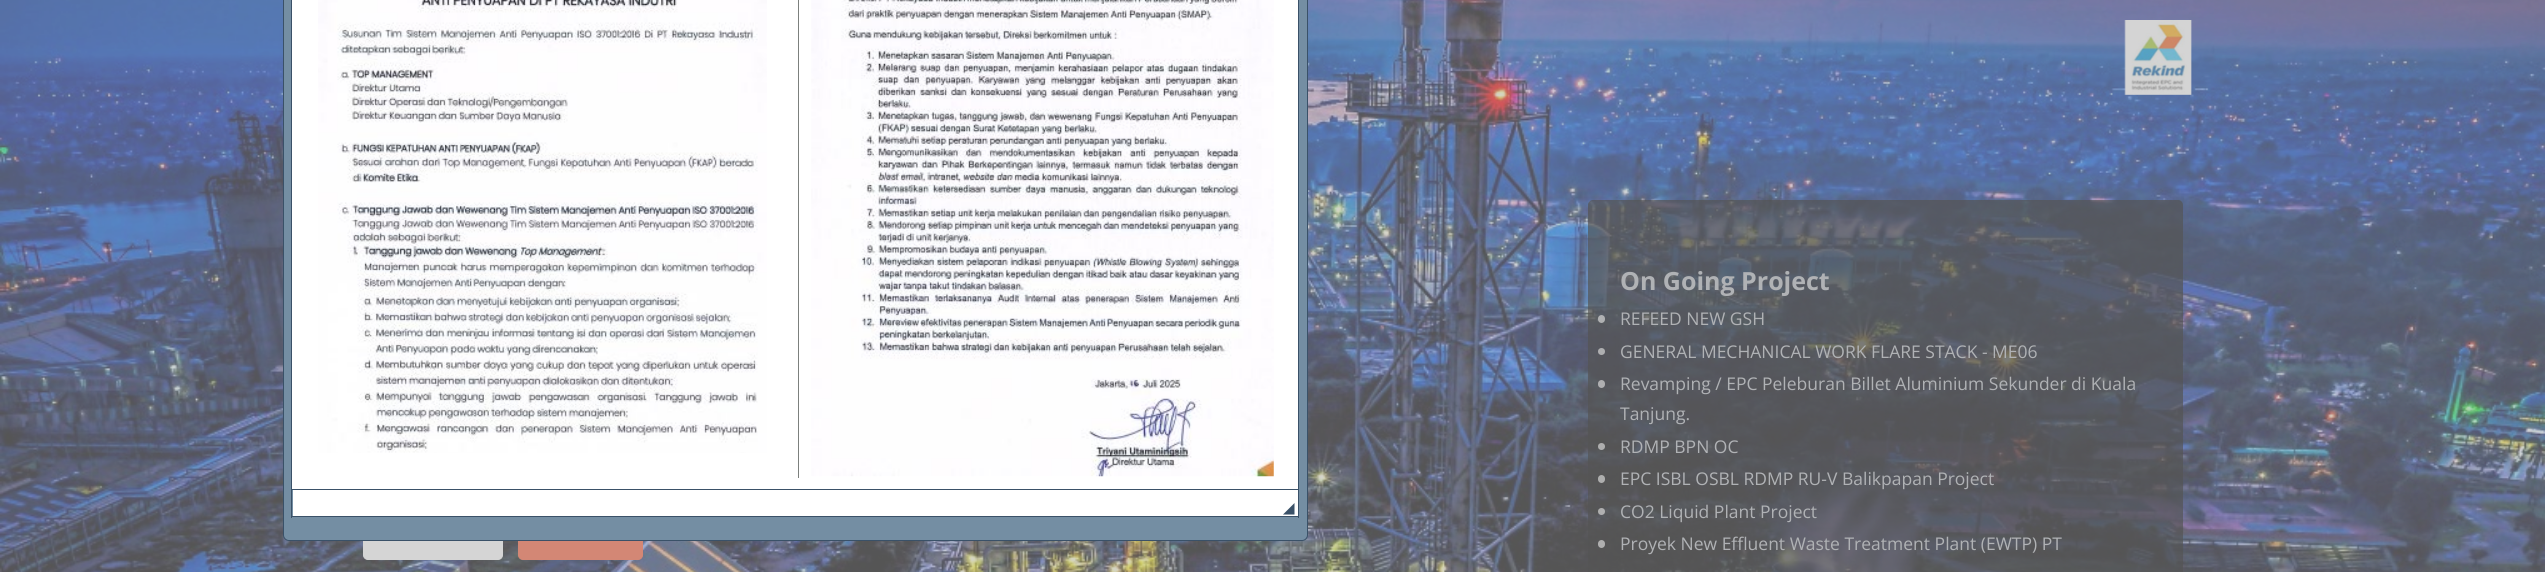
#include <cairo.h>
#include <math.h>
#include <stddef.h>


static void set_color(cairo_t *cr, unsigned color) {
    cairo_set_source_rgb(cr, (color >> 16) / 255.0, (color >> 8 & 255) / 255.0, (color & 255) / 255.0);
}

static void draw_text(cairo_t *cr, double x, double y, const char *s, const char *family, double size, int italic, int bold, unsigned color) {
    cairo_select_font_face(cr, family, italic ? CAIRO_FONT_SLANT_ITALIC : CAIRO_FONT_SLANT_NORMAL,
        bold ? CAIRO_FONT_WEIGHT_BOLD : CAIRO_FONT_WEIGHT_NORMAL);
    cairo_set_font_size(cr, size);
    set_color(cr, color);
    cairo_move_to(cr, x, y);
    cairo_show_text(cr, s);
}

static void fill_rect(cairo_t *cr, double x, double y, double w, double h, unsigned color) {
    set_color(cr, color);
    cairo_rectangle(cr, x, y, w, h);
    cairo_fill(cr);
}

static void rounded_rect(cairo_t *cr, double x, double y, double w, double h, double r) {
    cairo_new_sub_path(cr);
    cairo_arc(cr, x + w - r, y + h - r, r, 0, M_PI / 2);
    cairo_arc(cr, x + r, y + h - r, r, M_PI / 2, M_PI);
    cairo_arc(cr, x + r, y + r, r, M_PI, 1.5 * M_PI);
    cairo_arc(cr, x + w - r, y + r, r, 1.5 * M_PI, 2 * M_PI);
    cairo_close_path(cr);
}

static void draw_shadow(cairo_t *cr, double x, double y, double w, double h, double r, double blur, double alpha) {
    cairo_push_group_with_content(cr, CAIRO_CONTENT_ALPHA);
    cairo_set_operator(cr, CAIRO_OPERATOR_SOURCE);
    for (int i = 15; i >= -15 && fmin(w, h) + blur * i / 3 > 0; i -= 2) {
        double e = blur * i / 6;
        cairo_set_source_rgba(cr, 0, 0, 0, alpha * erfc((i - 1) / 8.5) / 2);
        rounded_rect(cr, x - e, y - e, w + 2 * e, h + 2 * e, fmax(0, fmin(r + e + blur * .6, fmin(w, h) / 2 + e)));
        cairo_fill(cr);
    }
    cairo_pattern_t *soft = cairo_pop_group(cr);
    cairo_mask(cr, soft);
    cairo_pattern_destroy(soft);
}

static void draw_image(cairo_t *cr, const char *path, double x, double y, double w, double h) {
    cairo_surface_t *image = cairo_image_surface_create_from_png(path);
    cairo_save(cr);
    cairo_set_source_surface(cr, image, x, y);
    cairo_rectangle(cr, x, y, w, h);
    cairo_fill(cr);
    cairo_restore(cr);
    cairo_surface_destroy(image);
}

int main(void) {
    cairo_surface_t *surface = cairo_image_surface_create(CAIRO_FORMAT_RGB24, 2545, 572);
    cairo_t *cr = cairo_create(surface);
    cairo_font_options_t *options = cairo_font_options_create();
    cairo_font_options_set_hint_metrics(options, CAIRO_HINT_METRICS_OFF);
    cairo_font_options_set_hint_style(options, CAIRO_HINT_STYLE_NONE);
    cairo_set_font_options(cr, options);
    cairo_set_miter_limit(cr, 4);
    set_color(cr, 0xFFFFFF);
    cairo_paint(cr);
    draw_image(cr, "assets/img4.png", 0, 0, 2545, 572);
    set_color(cr, 0x555555);
    draw_shadow(cr, 363, 508, 140, 53, 5, 2, 0.08);
    set_color(cr, 0xD5D5D5);
    rounded_rect(cr, 363.5, 506.5, 139, 53, 4.5);
    cairo_fill_preserve(cr);
    cairo_set_line_width(cr, 1);
    cairo_stroke(cr);
    set_color(cr, 0x555555);
    draw_shadow(cr, 518, 508, 125, 53, 5, 2, 0.08);
    set_color(cr, 0xD38775);
    rounded_rect(cr, 518.5, 506.5, 124, 53, 4.5);
    cairo_fill_preserve(cr);
    cairo_stroke(cr);
    set_color(cr, 0x748EA3);
    rounded_rect(cr, 283.5, -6.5, 1024, 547, 5.5);
    cairo_fill_preserve(cr);
    set_color(cr, 0x3A5168);
    cairo_stroke(cr);
    set_color(cr, 0xFFFFFF);
    cairo_rectangle(cr, 291.5, -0.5, 1007, 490);
    cairo_fill_preserve(cr);
    set_color(cr, 0x3A5168);
    cairo_stroke(cr);
    fill_rect(cr, 798, 0, 1, 478, 0x7C807D);
    draw_image(cr, "assets/img1.png", 318, 0, 449, 453);
    draw_image(cr, "assets/img2.png", 811, 0, 463, 477);
    fill_rect(cr, 293, 490, 1005, 26, 0xFFFFFF);
    fill_rect(cr, 1298, 490, 1, 28, 0x3A5168);
    fill_rect(cr, 291, 516, 1008, 1, 0x3A5168);
    fill_rect(cr, 291, 490, 1, 28, 0x3A5168);
    cairo_new_path(cr);
    cairo_move_to(cr, 1294.5, 503);
    cairo_line_to(cr, 1294.5, 514.5);
    cairo_line_to(cr, 1283, 514.5);
    cairo_close_path(cr);
    cairo_fill(cr);
    draw_image(cr, "assets/img3.png", 2124, 20, 68, 75);
    cairo_set_source_rgba(cr, 0.333, 0.333, 0.333, 0.7);
    rounded_rect(cr, 1588, 200, 595, 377, 5);
    cairo_fill(cr);
    draw_text(cr, 1620, 290, "On Going Project", "Open Sans", 25, 0, 1, 0xB0B2B5);
    cairo_set_source_rgba(cr, 0.835, 0.835, 0.835, 0.7);
    rounded_rect(cr, 1598, 315, 7, 8, 3.5);
    cairo_fill(cr);
    draw_text(cr, 1620, 325, "REFEED NEW GSH", "Open Sans", 17.5, 0, 0, 0xB0B2B5);
    cairo_set_source_rgba(cr, 0.835, 0.835, 0.835, 0.7);
    cairo_new_path(cr);
    cairo_arc(cr, 1601.5, 351.5, 3.5, 0, 2 * M_PI);
    cairo_fill(cr);
    draw_text(cr, 1620, 358, "GENERAL MECHANICAL WORK FLARE STACK - ME06", "Open Sans", 17.5, 0, 0, 0xB0B2B5);
    cairo_set_source_rgba(cr, 0.835, 0.835, 0.835, 0.7);
    rounded_rect(cr, 1598, 380, 7, 8, 3.5);
    cairo_fill(cr);
    draw_text(cr, 1620, 390, "Revamping / EPC Peleburan Billet Aluminium Sekunder di Kuala", "Open Sans", 17.5, 0, 0, 0xB0B2B5);
    draw_text(cr, 1620, 420, "Tanjung.", "Open Sans", 17.5, 0, 0, 0xB0B2B5);
    cairo_set_source_rgba(cr, 0.835, 0.835, 0.835, 0.7);
    cairo_new_path(cr);
    cairo_arc(cr, 1601.5, 446.5, 3.5, 0, 2 * M_PI);
    cairo_fill(cr);
    draw_text(cr, 1620, 453, "RDMP BPN OC", "Open Sans", 17.5, 0, 0, 0xB0B2B5);
    cairo_set_source_rgba(cr, 0.835, 0.835, 0.835, 0.7);
    rounded_rect(cr, 1598, 475, 7, 8, 3.5);
    cairo_fill(cr);
    draw_text(cr, 1620, 485, "EPC ISBL OSBL RDMP RU-V Balikpapan Project", "Open Sans", 17.5, 0, 0, 0xB0B2B5);
    cairo_set_source_rgba(cr, 0.835, 0.835, 0.835, 0.7);
    cairo_new_path(cr);
    cairo_arc(cr, 1601.5, 511.5, 3.5, 0, 2 * M_PI);
    cairo_fill(cr);
    draw_text(cr, 1620, 518, "CO2 Liquid Plant Project", "Open Sans", 17.5, 0, 0, 0xB0B2B5);
    set_color(cr, 0xAFAFAF);
    rounded_rect(cr, 1598, 540, 7, 8, 3.5);
    cairo_fill(cr);
    draw_text(cr, 1620, 550, "Proyek New Effluent Waste Treatment Plant (EWTP) PT", "Open Sans", 17.5, 0, 0, 0xB0B2B5);
    cairo_surface_write_to_png(surface, "output.png");
    cairo_font_options_destroy(options);
    cairo_destroy(cr);
    cairo_surface_destroy(surface);
    return 0;
}
